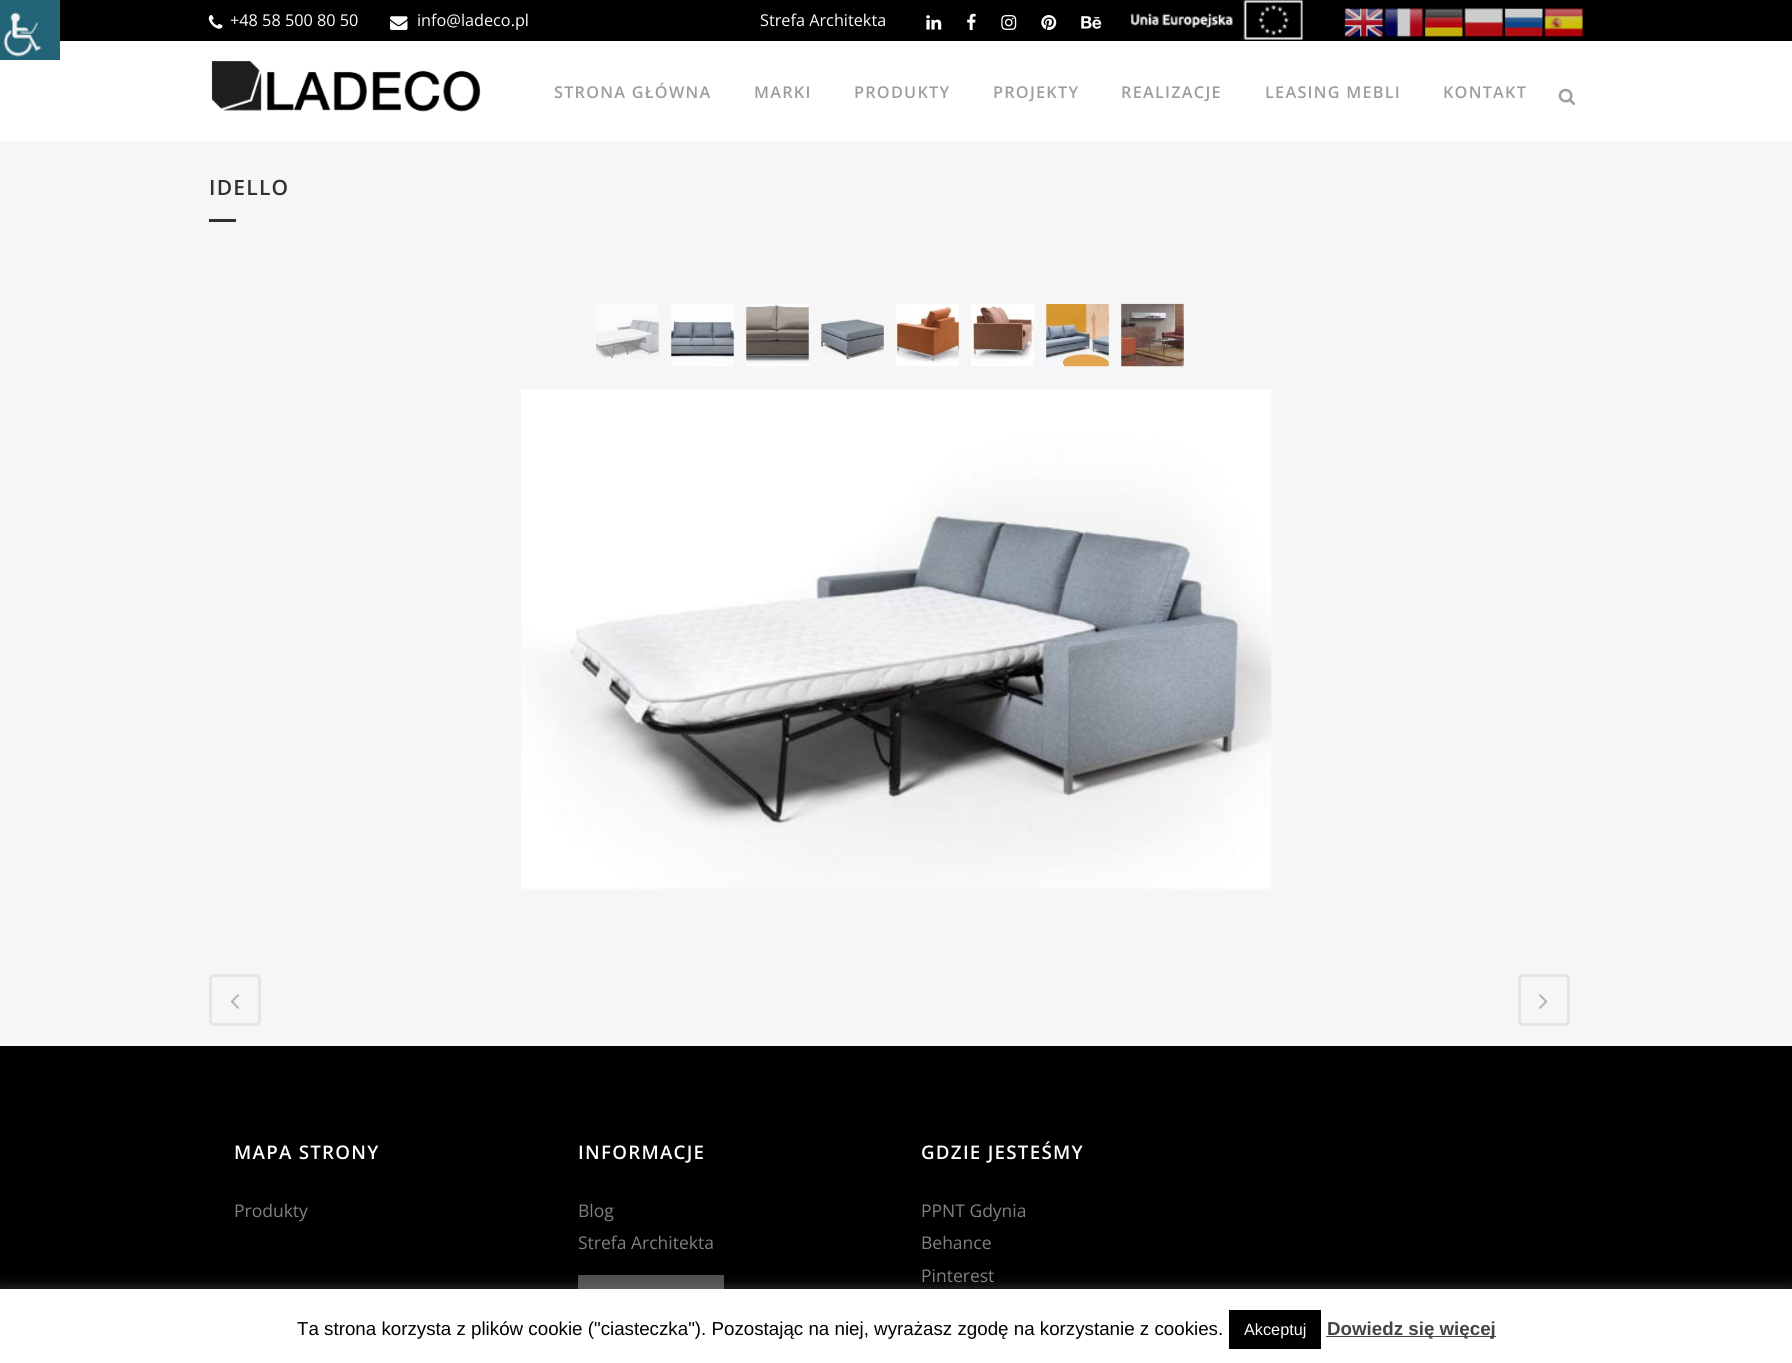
#include <cairo.h>
#include <math.h>
#include <stddef.h>


static void set_color(cairo_t *cr, unsigned color) {
    cairo_set_source_rgb(cr, (color >> 16) / 255.0, (color >> 8 & 255) / 255.0, (color & 255) / 255.0);
}

static void draw_text(cairo_t *cr, double x, double y, const char *s, const char *family, double size, int italic, int bold, unsigned color) {
    cairo_select_font_face(cr, family, italic ? CAIRO_FONT_SLANT_ITALIC : CAIRO_FONT_SLANT_NORMAL,
        bold ? CAIRO_FONT_WEIGHT_BOLD : CAIRO_FONT_WEIGHT_NORMAL);
    cairo_set_font_size(cr, size);
    set_color(cr, color);
    cairo_move_to(cr, x, y);
    cairo_show_text(cr, s);
}

static void draw_spaced(cairo_t *cr, double x, double y, const char *s, double letter, double word) {
    cairo_move_to(cr, x, y);
    while (*s) {
        char ch[5] = {0};
        int n = 0;
        do ch[n++] = *s++; while ((*s & 0xC0) == 0x80);
        cairo_show_text(cr, ch);
        cairo_rel_move_to(cr, letter + word * (*ch == ' '), 0);
    }
}

static void fill_rect(cairo_t *cr, double x, double y, double w, double h, unsigned color) {
    set_color(cr, color);
    cairo_rectangle(cr, x, y, w, h);
    cairo_fill(cr);
}

static void rounded_rect(cairo_t *cr, double x, double y, double w, double h, double r) {
    cairo_new_sub_path(cr);
    cairo_arc(cr, x + w - r, y + h - r, r, 0, M_PI / 2);
    cairo_arc(cr, x + r, y + h - r, r, M_PI / 2, M_PI);
    cairo_arc(cr, x + r, y + r, r, M_PI, 1.5 * M_PI);
    cairo_arc(cr, x + w - r, y + r, r, 1.5 * M_PI, 2 * M_PI);
    cairo_close_path(cr);
}

static void draw_shadow(cairo_t *cr, double x, double y, double w, double h, double r, double blur, double alpha) {
    cairo_push_group_with_content(cr, CAIRO_CONTENT_ALPHA);
    cairo_set_operator(cr, CAIRO_OPERATOR_SOURCE);
    for (int i = 15; i >= -15 && fmin(w, h) + blur * i / 3 > 0; i -= 2) {
        double e = blur * i / 6;
        cairo_set_source_rgba(cr, 0, 0, 0, alpha * erfc((i - 1) / 8.5) / 2);
        rounded_rect(cr, x - e, y - e, w + 2 * e, h + 2 * e, fmax(0, fmin(r + e + blur * .6, fmin(w, h) / 2 + e)));
        cairo_fill(cr);
    }
    cairo_pattern_t *soft = cairo_pop_group(cr);
    cairo_mask(cr, soft);
    cairo_pattern_destroy(soft);
}

static void draw_image(cairo_t *cr, const char *path, double x, double y, double w, double h) {
    cairo_surface_t *image = cairo_image_surface_create_from_png(path);
    cairo_save(cr);
    cairo_set_source_surface(cr, image, x, y);
    cairo_rectangle(cr, x, y, w, h);
    cairo_fill(cr);
    cairo_restore(cr);
    cairo_surface_destroy(image);
}

int main(void) {
    cairo_surface_t *surface = cairo_image_surface_create(CAIRO_FORMAT_RGB24, 1792, 1363);
    cairo_t *cr = cairo_create(surface);
    cairo_font_options_t *options = cairo_font_options_create();
    cairo_font_options_set_hint_metrics(options, CAIRO_HINT_METRICS_OFF);
    cairo_font_options_set_hint_style(options, CAIRO_HINT_STYLE_NONE);
    cairo_set_font_options(cr, options);
    cairo_set_miter_limit(cr, 4);
    set_color(cr, 0xF6F6F6);
    cairo_paint(cr);
    fill_rect(cr, 0, 41, 1792, 100, 0xFFFFFF);
    draw_image(cr, "assets/img1.png", 0, 0, 60, 60);
    fill_rect(cr, 60, 0, 1732, 41, 0x000000);
    draw_image(cr, "assets/img2.png", 208, 15, 15, 14);
    draw_text(cr, 230, 26, "+48 58 500 80 50", "Open Sans", 16.25, 0, 0, 0xFFFFFF);
    draw_image(cr, "assets/img3.png", 390, 16, 18, 14);
    draw_text(cr, 417, 26, "info@ladeco.pl", "Open Sans", 16.25, 0, 0, 0xFFFFFF);
    draw_text(cr, 760, 26, "Strefa Architekta", "Open Sans", 16.25, 0, 0, 0xFFFFFF);
    draw_image(cr, "assets/img4.png", 926, 15, 16, 15);
    draw_image(cr, "assets/img5.png", 967, 13, 9, 17);
    draw_image(cr, "assets/img6.png", 1001, 15, 16, 15);
    draw_image(cr, "assets/img7.png", 1041, 15, 16, 15);
    draw_image(cr, "assets/img8.png", 1081, 16, 21, 13);
    draw_image(cr, "assets/img9.png", 1131, 0, 172, 40);
    draw_image(cr, "assets/img10.png", 1344, 8, 39, 29);
    draw_image(cr, "assets/img11.png", 1384, 8, 39, 30);
    draw_image(cr, "assets/img12.png", 1424, 8, 39, 29);
    draw_image(cr, "assets/img13.png", 1464, 8, 39, 30);
    draw_image(cr, "assets/img14.png", 1504, 8, 39, 29);
    draw_image(cr, "assets/img15.png", 1544, 8, 39, 30);
    draw_image(cr, "assets/img16.png", 211, 61, 270, 51);
    cairo_select_font_face(cr, "Open Sans SemiBold", CAIRO_FONT_SLANT_NORMAL, CAIRO_FONT_WEIGHT_NORMAL);
    set_color(cr, 0x9D9D9D);
    draw_spaced(cr, 554, 98, "STRONA GŁÓWNA", 1.25, 0);
    draw_spaced(cr, 754, 98, "MARKI", 1.25, 0);
    draw_spaced(cr, 854, 98, "PRODUKTY", 1.25, 0);
    draw_spaced(cr, 993, 98, "PROJEKTY", 1.25, 0);
    draw_spaced(cr, 1121, 98, "REALIZACJE", 1.25, 0);
    draw_spaced(cr, 1265, 98, "LEASING MEBLI", 1.25, 0);
    draw_spaced(cr, 1443, 98, "KONTAKT", 1.25, 0);
    draw_image(cr, "assets/img17.png", 1558, 88, 17, 17);
    cairo_set_font_size(cr, 21);
    set_color(cr, 0x303030);
    draw_spaced(cr, 209, 195, "IDELLO", 1.25, 0);
    fill_rect(cr, 209, 219, 27, 3, 0x303030);
    draw_image(cr, "assets/img18.png", 596, 304, 63, 55);
    draw_image(cr, "assets/img19.png", 671, 304, 63, 62);
    draw_image(cr, "assets/img20.png", 746, 304, 63, 62);
    draw_image(cr, "assets/img21.png", 821, 319, 63, 42);
    draw_image(cr, "assets/img22.png", 896, 304, 63, 62);
    draw_image(cr, "assets/img23.png", 971, 304, 63, 62);
    draw_image(cr, "assets/img24.png", 1046, 303, 63, 64);
    draw_image(cr, "assets/img25.png", 1121, 303, 63, 64);
    draw_image(cr, "assets/img26.png", 521, 389, 751, 500);
    rounded_rect(cr, 210.5, 975.5, 49, 49, 3.5);
    set_color(cr, 0xE5E5E5);
    cairo_set_line_width(cr, 3);
    cairo_stroke(cr);
    draw_image(cr, "assets/img27.png", 230, 994, 10, 15);
    rounded_rect(cr, 1519.5, 975.5, 49, 49, 3.5);
    cairo_stroke(cr);
    draw_image(cr, "assets/img28.png", 1539, 994, 9, 15);
    fill_rect(cr, 0, 1046, 1792, 243, 0x000000);
    cairo_set_font_size(cr, 18.75);
    set_color(cr, 0xFFFFFF);
    draw_spaced(cr, 234, 1159, "MAPA STRONY", 1.25, 0);
    draw_text(cr, 234, 1217, "Produkty", "Open Sans", 17.5, 0, 0, 0x818181);
    cairo_select_font_face(cr, "Open Sans SemiBold", CAIRO_FONT_SLANT_NORMAL, CAIRO_FONT_WEIGHT_NORMAL);
    cairo_set_font_size(cr, 18.75);
    set_color(cr, 0xFFFFFF);
    draw_spaced(cr, 578, 1159, "INFORMACJE", 1.25, 0);
    draw_text(cr, 578, 1217, "Blog", "Open Sans", 17.5, 0, 0, 0x818181);
    draw_text(cr, 578, 1249, "Strefa Architekta", "Open Sans", 17.5, 0, 0, 0x818181);
    fill_rect(cr, 578, 1275, 146, 14, 0x505050);
    cairo_select_font_face(cr, "Open Sans SemiBold", CAIRO_FONT_SLANT_NORMAL, CAIRO_FONT_WEIGHT_NORMAL);
    cairo_set_font_size(cr, 18.75);
    set_color(cr, 0xFFFFFF);
    draw_spaced(cr, 921, 1159, "GDZIE JESTEŚMY", 1.25, 0);
    draw_text(cr, 921, 1217, "PPNT Gdynia", "Open Sans", 17.5, 0, 0, 0x818181);
    draw_text(cr, 921, 1249, "Behance", "Open Sans", 17.5, 0, 0, 0x818181);
    draw_text(cr, 921, 1282, "Pinterest", "Open Sans", 17.5, 0, 0, 0x818181);
    set_color(cr, 0xACABAB);
    draw_shadow(cr, 0, 1288, 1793, 75, 0, 6, 0.3);
    fill_rect(cr, 0, 1289, 1792, 74, 0xFFFFFF);
    draw_text(cr, 297, 1335, "Ta strona korzysta z plików cookie (\"ciasteczka\"). Pozostając na niej, wyrażasz zgodę na korzystanie z cookies.", "Liberation Sans", 18.75, 0, 0, 0x000000);
    fill_rect(cr, 1229, 1310, 92, 39, 0x000000);
    draw_text(cr, 1244, 1335, "Akceptuj", "Liberation Sans", 16.25, 0, 0, 0xFFFFFF);
    fill_rect(cr, 1326, 1336, 170, 1, 0x444444);
    draw_text(cr, 1327, 1335, "Dowiedz się więcej", "Liberation Sans", 18.75, 0, 1, 0x444444);
    cairo_surface_write_to_png(surface, "output.png");
    cairo_font_options_destroy(options);
    cairo_destroy(cr);
    cairo_surface_destroy(surface);
    return 0;
}
